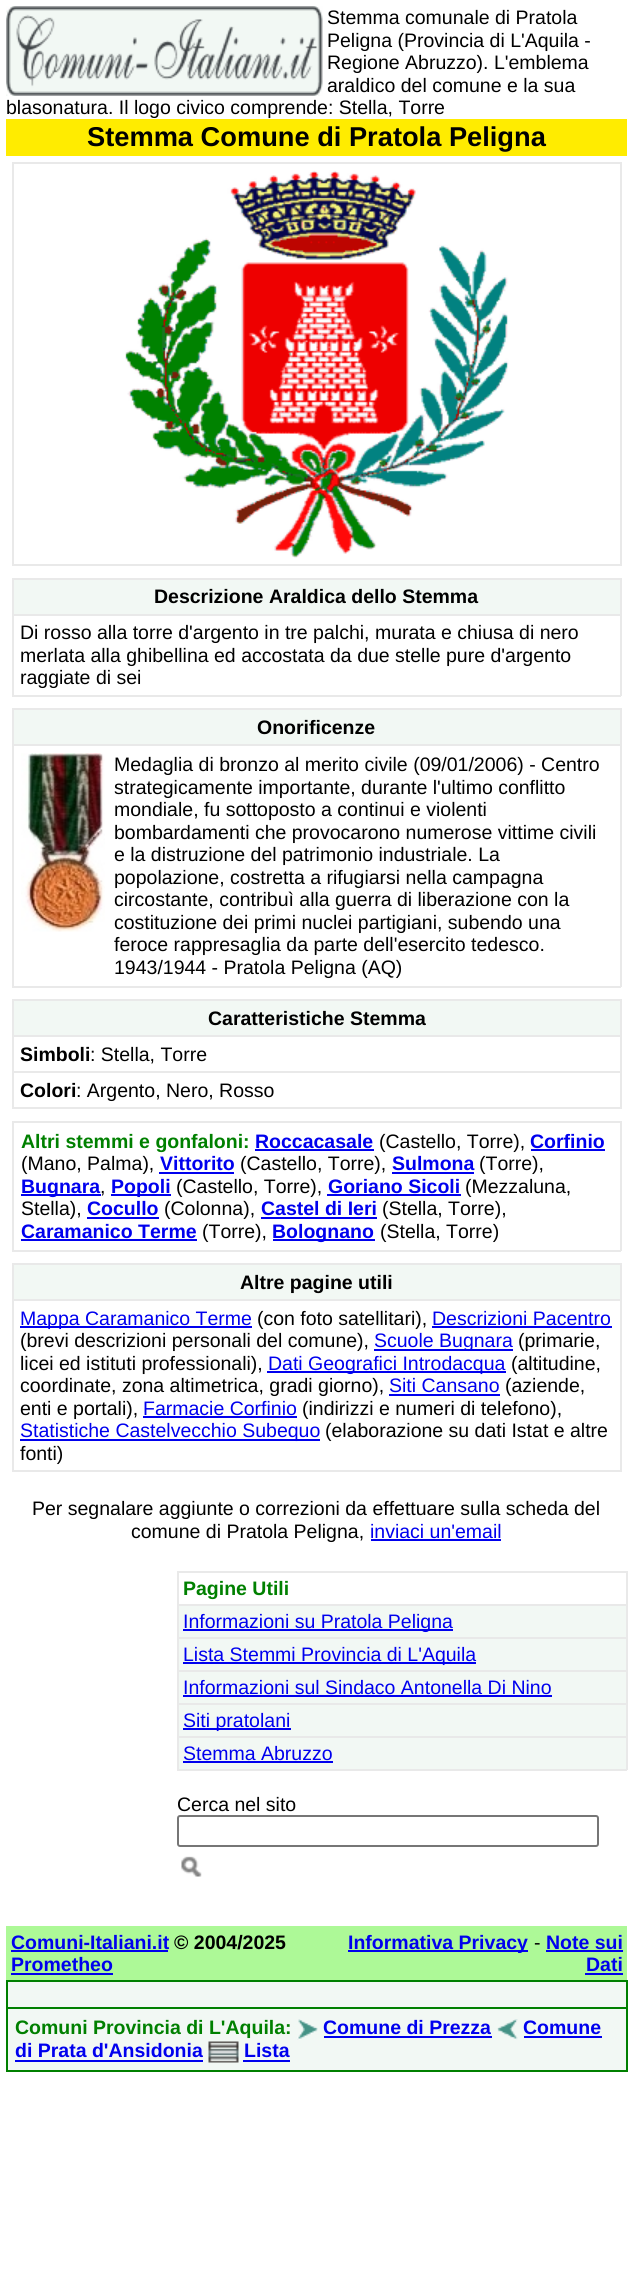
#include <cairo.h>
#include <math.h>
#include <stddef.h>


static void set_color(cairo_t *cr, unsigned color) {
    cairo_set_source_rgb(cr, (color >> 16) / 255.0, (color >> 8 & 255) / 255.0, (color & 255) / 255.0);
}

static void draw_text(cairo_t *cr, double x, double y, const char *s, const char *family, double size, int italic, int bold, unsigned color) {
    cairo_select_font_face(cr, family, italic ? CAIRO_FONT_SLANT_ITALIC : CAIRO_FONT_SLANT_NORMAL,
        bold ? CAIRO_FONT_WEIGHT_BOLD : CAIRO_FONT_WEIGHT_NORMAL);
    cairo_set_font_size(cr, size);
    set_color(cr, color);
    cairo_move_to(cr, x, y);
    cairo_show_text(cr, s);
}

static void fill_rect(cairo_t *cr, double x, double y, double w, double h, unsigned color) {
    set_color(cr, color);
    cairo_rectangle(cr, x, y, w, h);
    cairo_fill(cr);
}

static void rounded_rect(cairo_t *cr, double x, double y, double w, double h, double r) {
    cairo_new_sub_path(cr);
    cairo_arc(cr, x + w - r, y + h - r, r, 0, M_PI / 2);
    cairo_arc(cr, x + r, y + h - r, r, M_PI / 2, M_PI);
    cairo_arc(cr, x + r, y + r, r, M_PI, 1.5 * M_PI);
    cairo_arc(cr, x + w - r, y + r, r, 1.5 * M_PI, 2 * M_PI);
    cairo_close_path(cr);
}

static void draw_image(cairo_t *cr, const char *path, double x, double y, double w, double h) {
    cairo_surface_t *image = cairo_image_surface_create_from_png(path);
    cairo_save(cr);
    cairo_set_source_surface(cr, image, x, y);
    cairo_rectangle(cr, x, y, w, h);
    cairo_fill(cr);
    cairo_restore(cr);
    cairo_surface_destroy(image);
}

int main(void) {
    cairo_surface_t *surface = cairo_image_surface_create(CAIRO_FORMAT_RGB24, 633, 2286);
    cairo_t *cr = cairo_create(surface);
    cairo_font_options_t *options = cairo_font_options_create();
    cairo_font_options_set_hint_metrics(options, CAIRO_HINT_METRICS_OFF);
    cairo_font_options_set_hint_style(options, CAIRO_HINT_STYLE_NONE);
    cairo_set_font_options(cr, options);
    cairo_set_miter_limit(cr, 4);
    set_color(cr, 0xFFFFFF);
    cairo_paint(cr);
    draw_image(cr, "assets/img1.png", 6, 6, 317, 90);
    draw_text(cr, 327, 24, "Stemma comunale di Pratola", "Liberation Sans", 19.5, 0, 0, 0x000000);
    draw_text(cr, 327, 47, "Peligna (Provincia di L'Aquila -", "Liberation Sans", 19.5, 0, 0, 0x000000);
    draw_text(cr, 327, 69, "Regione Abruzzo). L'emblema", "Liberation Sans", 19.5, 0, 0, 0x000000);
    draw_text(cr, 327, 92, "araldico del comune e la sua", "Liberation Sans", 19.5, 0, 0, 0x000000);
    draw_text(cr, 6, 114, "blasonatura. Il logo civico comprende: Stella, Torre", "Liberation Sans", 19.5, 0, 0, 0x000000);
    fill_rect(cr, 6, 119, 621, 37, 0xFFEC00);
    draw_text(cr, 87, 146, "Stemma Comune di Pratola Peligna", "Liberation Sans", 27.25, 0, 1, 0x000000);
    fill_rect(cr, 12, 162, 609, 2, 0xE9E9E9);
    fill_rect(cr, 620, 162, 2, 404, 0xE9E9E9);
    fill_rect(cr, 12, 564, 609, 2, 0xE9E9E9);
    fill_rect(cr, 12, 162, 2, 404, 0xE9E9E9);
    draw_image(cr, "assets/img2.png", 125, 170, 384, 388);
    fill_rect(cr, 12, 578, 609, 2, 0xE9E9E9);
    fill_rect(cr, 620, 578, 2, 118, 0xE9E9E9);
    fill_rect(cr, 12, 695, 609, 2, 0xE9E9E9);
    fill_rect(cr, 12, 578, 2, 118, 0xE9E9E9);
    fill_rect(cr, 14, 580, 606, 34, 0xF2F8F4);
    draw_text(cr, 154, 603, "Descrizione Araldica dello Stemma", "Liberation Sans", 19.5, 0, 1, 0x000000);
    fill_rect(cr, 12, 614, 609, 2, 0xE9E9E9);
    draw_text(cr, 20, 639, "Di rosso alla torre d'argento in tre palchi, murata e chiusa di nero", "Liberation Sans", 19.5, 0, 0, 0x000000);
    draw_text(cr, 20, 662, "merlata alla ghibellina ed accostata da due stelle pure d'argento", "Liberation Sans", 19.5, 0, 0, 0x000000);
    draw_text(cr, 20, 684, "raggiate di sei", "Liberation Sans", 19.5, 0, 0, 0x000000);
    fill_rect(cr, 12, 708, 609, 2, 0xE9E9E9);
    fill_rect(cr, 620, 708, 2, 279, 0xE9E9E9);
    fill_rect(cr, 12, 986, 609, 2, 0xE9E9E9);
    fill_rect(cr, 12, 708, 2, 279, 0xE9E9E9);
    fill_rect(cr, 14, 710, 606, 34, 0xF2F8F4);
    draw_text(cr, 257, 734, "Onorificenze", "Liberation Sans", 19.5, 0, 1, 0x000000);
    fill_rect(cr, 12, 744, 609, 2, 0xE9E9E9);
    draw_image(cr, "assets/img3.png", 21, 753, 84, 179);
    draw_text(cr, 114, 771, "Medaglia di bronzo al merito civile (09/01/2006) - Centro", "Liberation Sans", 19.5, 0, 0, 0x000000);
    draw_text(cr, 114, 794, "strategicamente importante, durante l'ultimo conflitto", "Liberation Sans", 19.5, 0, 0, 0x000000);
    draw_text(cr, 114, 816, "mondiale, fu sottoposto a continui e violenti", "Liberation Sans", 19.5, 0, 0, 0x000000);
    draw_text(cr, 114, 839, "bombardamenti che provocarono numerose vittime civili", "Liberation Sans", 19.5, 0, 0, 0x000000);
    draw_text(cr, 114, 861, "e la distruzione del patrimonio industriale. La", "Liberation Sans", 19.5, 0, 0, 0x000000);
    draw_text(cr, 114, 884, "popolazione, costretta a rifugiarsi nella campagna", "Liberation Sans", 19.5, 0, 0, 0x000000);
    draw_text(cr, 114, 906, "circostante, contribuì alla guerra di liberazione con la", "Liberation Sans", 19.5, 0, 0, 0x000000);
    draw_text(cr, 114, 929, "costituzione dei primi nuclei partigiani, subendo una", "Liberation Sans", 19.5, 0, 0, 0x000000);
    draw_text(cr, 114, 951, "feroce rappresaglia da parte dell'esercito tedesco.", "Liberation Sans", 19.5, 0, 0, 0x000000);
    draw_text(cr, 114, 974, "1943/1944 - Pratola Peligna (AQ)", "Liberation Sans", 19.5, 0, 0, 0x000000);
    fill_rect(cr, 12, 999, 609, 2, 0xE9E9E9);
    fill_rect(cr, 620, 999, 2, 110, 0xE9E9E9);
    fill_rect(cr, 12, 1107, 609, 2, 0xE9E9E9);
    fill_rect(cr, 12, 999, 2, 110, 0xE9E9E9);
    fill_rect(cr, 14, 1001, 606, 34, 0xF2F8F4);
    draw_text(cr, 208, 1025, "Caratteristiche Stemma", "Liberation Sans", 19.5, 0, 1, 0x000000);
    fill_rect(cr, 12, 1035, 609, 2, 0xE9E9E9);
    draw_text(cr, 20, 1061, "Simboli", "Liberation Sans", 19.5, 0, 1, 0x000000);
    draw_text(cr, 90, 1061, ": Stella, Torre", "Liberation Sans", 19.5, 0, 0, 0x000000);
    fill_rect(cr, 12, 1071, 609, 2, 0xE9E9E9);
    draw_text(cr, 20, 1097, "Colori", "Liberation Sans", 19.5, 0, 1, 0x000000);
    draw_text(cr, 76, 1097, ": Argento, Nero, Rosso", "Liberation Sans", 19.5, 0, 0, 0x000000);
    fill_rect(cr, 12, 1121, 609, 2, 0xE9E9E9);
    fill_rect(cr, 620, 1121, 2, 130, 0xE9E9E9);
    fill_rect(cr, 12, 1250, 609, 2, 0xE9E9E9);
    fill_rect(cr, 12, 1121, 2, 130, 0xE9E9E9);
    draw_text(cr, 21, 1148, "Altri stemmi e gonfaloni:", "Liberation Sans", 19.5, 0, 1, 0x008000);
    draw_text(cr, 255, 1148, "Roccacasale", "Liberation Sans", 19.5, 0, 1, 0x0000EE);
    fill_rect(cr, 255, 1149, 119, 2, 0x0000EE);
    draw_text(cr, 379, 1148, "(Castello, Torre),", "Liberation Sans", 19.5, 0, 0, 0x000000);
    draw_text(cr, 530, 1148, "Corfinio", "Liberation Sans", 19.5, 0, 1, 0x0000EE);
    fill_rect(cr, 531, 1149, 74, 2, 0x0000EE);
    draw_text(cr, 21, 1170, "(Mano, Palma),", "Liberation Sans", 19.5, 0, 0, 0x000000);
    draw_text(cr, 160, 1170, "Vittorito", "Liberation Sans", 19.5, 0, 1, 0x0000EE);
    fill_rect(cr, 159, 1172, 75, 2, 0x0000EE);
    draw_text(cr, 240, 1170, "(Castello, Torre),", "Liberation Sans", 19.5, 0, 0, 0x000000);
    draw_text(cr, 392, 1170, "Sulmona", "Liberation Sans", 19.5, 0, 1, 0x0000EE);
    fill_rect(cr, 392, 1172, 82, 2, 0x0000EE);
    draw_text(cr, 479, 1170, "(Torre),", "Liberation Sans", 19.5, 0, 0, 0x000000);
    fill_rect(cr, 21, 1194, 80, 2, 0x0000EE);
    draw_text(cr, 21, 1193, "Bugnara", "Liberation Sans", 19.5, 0, 1, 0x0000EE);
    draw_text(cr, 100, 1193, ",", "Liberation Sans", 19.5, 0, 0, 0x000000);
    fill_rect(cr, 111, 1194, 60, 2, 0x0000EE);
    draw_text(cr, 111, 1193, "Popoli", "Liberation Sans", 19.5, 0, 1, 0x0000EE);
    draw_text(cr, 176, 1193, "(Castello, Torre),", "Liberation Sans", 19.5, 0, 0, 0x000000);
    draw_text(cr, 328, 1193, "Goriano Sicoli", "Liberation Sans", 19.5, 0, 1, 0x0000EE);
    fill_rect(cr, 327, 1194, 134, 2, 0x0000EE);
    draw_text(cr, 465, 1193, "(Mezzaluna,", "Liberation Sans", 19.5, 0, 0, 0x000000);
    draw_text(cr, 21, 1215, "Stella),", "Liberation Sans", 19.5, 0, 0, 0x000000);
    draw_text(cr, 87, 1215, "Cocullo", "Liberation Sans", 19.5, 0, 1, 0x0000EE);
    fill_rect(cr, 87, 1217, 72, 2, 0x0000EE);
    draw_text(cr, 164, 1215, "(Colonna),", "Liberation Sans", 19.5, 0, 0, 0x000000);
    draw_text(cr, 261, 1215, "Castel di Ieri", "Liberation Sans", 19.5, 0, 1, 0x0000EE);
    fill_rect(cr, 261, 1217, 116, 2, 0x0000EE);
    draw_text(cr, 382, 1215, "(Stella, Torre),", "Liberation Sans", 19.5, 0, 0, 0x000000);
    draw_text(cr, 21, 1238, "Caramanico Terme", "Liberation Sans", 19.5, 0, 1, 0x0000EE);
    fill_rect(cr, 21, 1239, 176, 2, 0x0000EE);
    draw_text(cr, 202, 1238, "(Torre),", "Liberation Sans", 19.5, 0, 0, 0x000000);
    fill_rect(cr, 273, 1239, 102, 2, 0x0000EE);
    draw_text(cr, 272, 1238, "Bolognano", "Liberation Sans", 19.5, 0, 1, 0x0000EE);
    draw_text(cr, 380, 1238, "(Stella, Torre)", "Liberation Sans", 19.5, 0, 0, 0x000000);
    fill_rect(cr, 12, 1263, 609, 2, 0xE9E9E9);
    fill_rect(cr, 620, 1263, 2, 209, 0xE9E9E9);
    fill_rect(cr, 12, 1470, 609, 2, 0xE9E9E9);
    fill_rect(cr, 12, 1263, 2, 209, 0xE9E9E9);
    fill_rect(cr, 14, 1265, 606, 34, 0xF2F8F4);
    draw_text(cr, 240, 1289, "Altre pagine utili", "Liberation Sans", 19.5, 0, 1, 0x000000);
    fill_rect(cr, 12, 1299, 609, 2, 0xE9E9E9);
    fill_rect(cr, 20, 1326, 232, 2, 0x0000EE);
    draw_text(cr, 20, 1325, "Mappa Caramanico Terme", "Liberation Sans", 19.5, 0, 0, 0x0000EE);
    draw_text(cr, 257, 1325, "(con foto satellitari),", "Liberation Sans", 19.5, 0, 0, 0x000000);
    draw_text(cr, 432, 1325, "Descrizioni Pacentro", "Liberation Sans", 19.5, 0, 0, 0x0000EE);
    fill_rect(cr, 432, 1326, 180, 2, 0x0000EE);
    draw_text(cr, 20, 1347, "(brevi descrizioni personali del comune),", "Liberation Sans", 19.5, 0, 0, 0x000000);
    fill_rect(cr, 374, 1349, 139, 2, 0x0000EE);
    draw_text(cr, 374, 1347, "Scuole Bugnara", "Liberation Sans", 19.5, 0, 0, 0x0000EE);
    draw_text(cr, 518, 1347, "(primarie,", "Liberation Sans", 19.5, 0, 0, 0x000000);
    draw_text(cr, 20, 1370, "licei ed istituti professionali),", "Liberation Sans", 19.5, 0, 0, 0x000000);
    fill_rect(cr, 267, 1371, 239, 2, 0x0000EE);
    draw_text(cr, 268, 1370, "Dati Geografici Introdacqua", "Liberation Sans", 19.5, 0, 0, 0x0000EE);
    draw_text(cr, 511, 1370, "(altitudine,", "Liberation Sans", 19.5, 0, 0, 0x000000);
    draw_text(cr, 20, 1392, "coordinate, zona altimetrica, gradi giorno),", "Liberation Sans", 19.5, 0, 0, 0x000000);
    draw_text(cr, 389, 1392, "Siti Cansano", "Liberation Sans", 19.5, 0, 0, 0x0000EE);
    fill_rect(cr, 389, 1394, 111, 2, 0x0000EE);
    draw_text(cr, 505, 1392, "(aziende,", "Liberation Sans", 19.5, 0, 0, 0x000000);
    draw_text(cr, 20, 1415, "enti e portali),", "Liberation Sans", 19.5, 0, 0, 0x000000);
    draw_text(cr, 143, 1415, "Farmacie Corfinio", "Liberation Sans", 19.5, 0, 0, 0x0000EE);
    fill_rect(cr, 143, 1416, 154, 2, 0x0000EE);
    draw_text(cr, 302, 1415, "(indirizzi e numeri di telefono),", "Liberation Sans", 19.5, 0, 0, 0x000000);
    fill_rect(cr, 20, 1439, 300, 2, 0x0000EE);
    draw_text(cr, 20, 1437, "Statistiche Castelvecchio Subequo", "Liberation Sans", 19.5, 0, 0, 0x0000EE);
    draw_text(cr, 325, 1437, "(elaborazione su dati Istat e altre", "Liberation Sans", 19.5, 0, 0, 0x000000);
    draw_text(cr, 20, 1460, "fonti)", "Liberation Sans", 19.5, 0, 0, 0x000000);
    draw_text(cr, 32, 1515, "Per segnalare aggiunte o correzioni da effettuare sulla scheda del", "Liberation Sans", 19.5, 0, 0, 0x000000);
    draw_text(cr, 131, 1538, "comune di Pratola Peligna,", "Liberation Sans", 19.5, 0, 0, 0x000000);
    draw_text(cr, 370, 1538, "inviaci un'email", "Liberation Sans", 19.5, 0, 0, 0x0000EE);
    fill_rect(cr, 371, 1539, 130, 2, 0x0000EE);
    fill_rect(cr, 179, 1606, 447, 163, 0xF2F8F4);
    fill_rect(cr, 177, 1571, 450, 2, 0xE9E9E9);
    fill_rect(cr, 626, 1571, 2, 199, 0xE9E9E9);
    fill_rect(cr, 177, 1769, 450, 2, 0xE9E9E9);
    fill_rect(cr, 177, 1571, 2, 199, 0xE9E9E9);
    draw_text(cr, 183, 1595, "Pagine Utili", "Liberation Sans", 19.5, 0, 1, 0x008000);
    fill_rect(cr, 177, 1604, 450, 2, 0xE9E9E9);
    fill_rect(cr, 183, 1629, 270, 2, 0x0000EE);
    draw_text(cr, 183, 1628, "Informazioni su Pratola Peligna", "Liberation Sans", 19.5, 0, 0, 0x0000EE);
    fill_rect(cr, 177, 1637, 450, 2, 0xE9E9E9);
    fill_rect(cr, 183, 1662, 293, 2, 0x0000EE);
    draw_text(cr, 183, 1661, "Lista Stemmi Provincia di L'Aquila", "Liberation Sans", 19.5, 0, 0, 0x0000EE);
    fill_rect(cr, 177, 1670, 450, 2, 0xE9E9E9);
    draw_text(cr, 183, 1694, "Informazioni sul Sindaco Antonella Di Nino", "Liberation Sans", 19.5, 0, 0, 0x0000EE);
    fill_rect(cr, 183, 1695, 369, 2, 0x0000EE);
    fill_rect(cr, 177, 1703, 450, 2, 0xE9E9E9);
    fill_rect(cr, 183, 1728, 108, 2, 0x0000EE);
    draw_text(cr, 183, 1727, "Siti pratolani", "Liberation Sans", 19.5, 0, 0, 0x0000EE);
    fill_rect(cr, 177, 1736, 450, 2, 0xE9E9E9);
    draw_text(cr, 183, 1760, "Stemma Abruzzo", "Liberation Sans", 19.5, 0, 0, 0x0000EE);
    fill_rect(cr, 183, 1761, 150, 2, 0x0000EE);
    draw_text(cr, 177, 1811, "Cerca nel sito", "Liberation Sans", 19.5, 0, 0, 0x000000);
    rounded_rect(cr, 178, 1816, 420, 30, 2);
    set_color(cr, 0x767676);
    cairo_stroke(cr);
    draw_image(cr, "assets/img4.png", 181, 1856, 21, 21);
    fill_rect(cr, 6, 1926, 621, 54, 0xADF997);
    draw_text(cr, 11, 1949, "Comuni-Italiani.it", "Liberation Sans", 19.5, 0, 1, 0x0000EE);
    fill_rect(cr, 11, 1950, 157, 2, 0x0000EE);
    draw_text(cr, 174, 1949, "© 2004/2025", "Liberation Sans", 19.5, 0, 1, 0x000000);
    draw_text(cr, 11, 1971, "Prometheo", "Liberation Sans", 19.5, 0, 1, 0x0000EE);
    fill_rect(cr, 11, 1973, 102, 2, 0x0000EE);
    fill_rect(cr, 348, 1950, 180, 2, 0x0000EE);
    draw_text(cr, 348, 1949, "Informativa Privacy", "Liberation Sans", 19.5, 0, 1, 0x0000EE);
    draw_text(cr, 534, 1949, "-", "Liberation Sans", 19.5, 0, 0, 0x000000);
    draw_text(cr, 546, 1949, "Note sui", "Liberation Sans", 19.5, 0, 1, 0x0000EE);
    fill_rect(cr, 546, 1950, 77, 2, 0x0000EE);
    draw_text(cr, 586, 1971, "Dati", "Liberation Sans", 19.5, 0, 1, 0x0000EE);
    fill_rect(cr, 585, 1973, 38, 2, 0x0000EE);
    fill_rect(cr, 8, 1982, 618, 88, 0xF2F8F4);
    fill_rect(cr, 6, 1980, 621, 2, 0x008000);
    fill_rect(cr, 626, 1980, 2, 92, 0x008000);
    fill_rect(cr, 6, 2070, 621, 2, 0x008000);
    fill_rect(cr, 6, 1980, 2, 92, 0x008000);
    fill_rect(cr, 6, 2007, 621, 2, 0x008000);
    draw_text(cr, 15, 2034, "Comuni Provincia di L'Aquila:", "Liberation Sans", 19.5, 0, 1, 0x008000);
    draw_image(cr, "assets/img5.png", 297, 2019, 21, 21);
    draw_text(cr, 323, 2034, "Comune di Prezza", "Liberation Sans", 19.5, 0, 1, 0x0000EE);
    fill_rect(cr, 324, 2036, 168, 2, 0x0000EE);
    draw_image(cr, "assets/img6.png", 497, 2019, 21, 21);
    draw_text(cr, 523, 2034, "Comune", "Liberation Sans", 19.5, 0, 1, 0x0000EE);
    fill_rect(cr, 524, 2036, 78, 2, 0x0000EE);
    draw_text(cr, 15, 2057, "di Prata d'Ansidonia", "Liberation Sans", 19.5, 0, 1, 0x0000EE);
    fill_rect(cr, 15, 2060, 188, 2, 0x0000EE);
    draw_image(cr, "assets/img7.png", 208, 2041, 31, 22);
    draw_text(cr, 244, 2057, "Lista", "Liberation Sans", 19.5, 0, 1, 0x0000EE);
    fill_rect(cr, 243, 2060, 47, 2, 0x0000EE);
    cairo_surface_write_to_png(surface, "output.png");
    cairo_font_options_destroy(options);
    cairo_destroy(cr);
    cairo_surface_destroy(surface);
    return 0;
}
